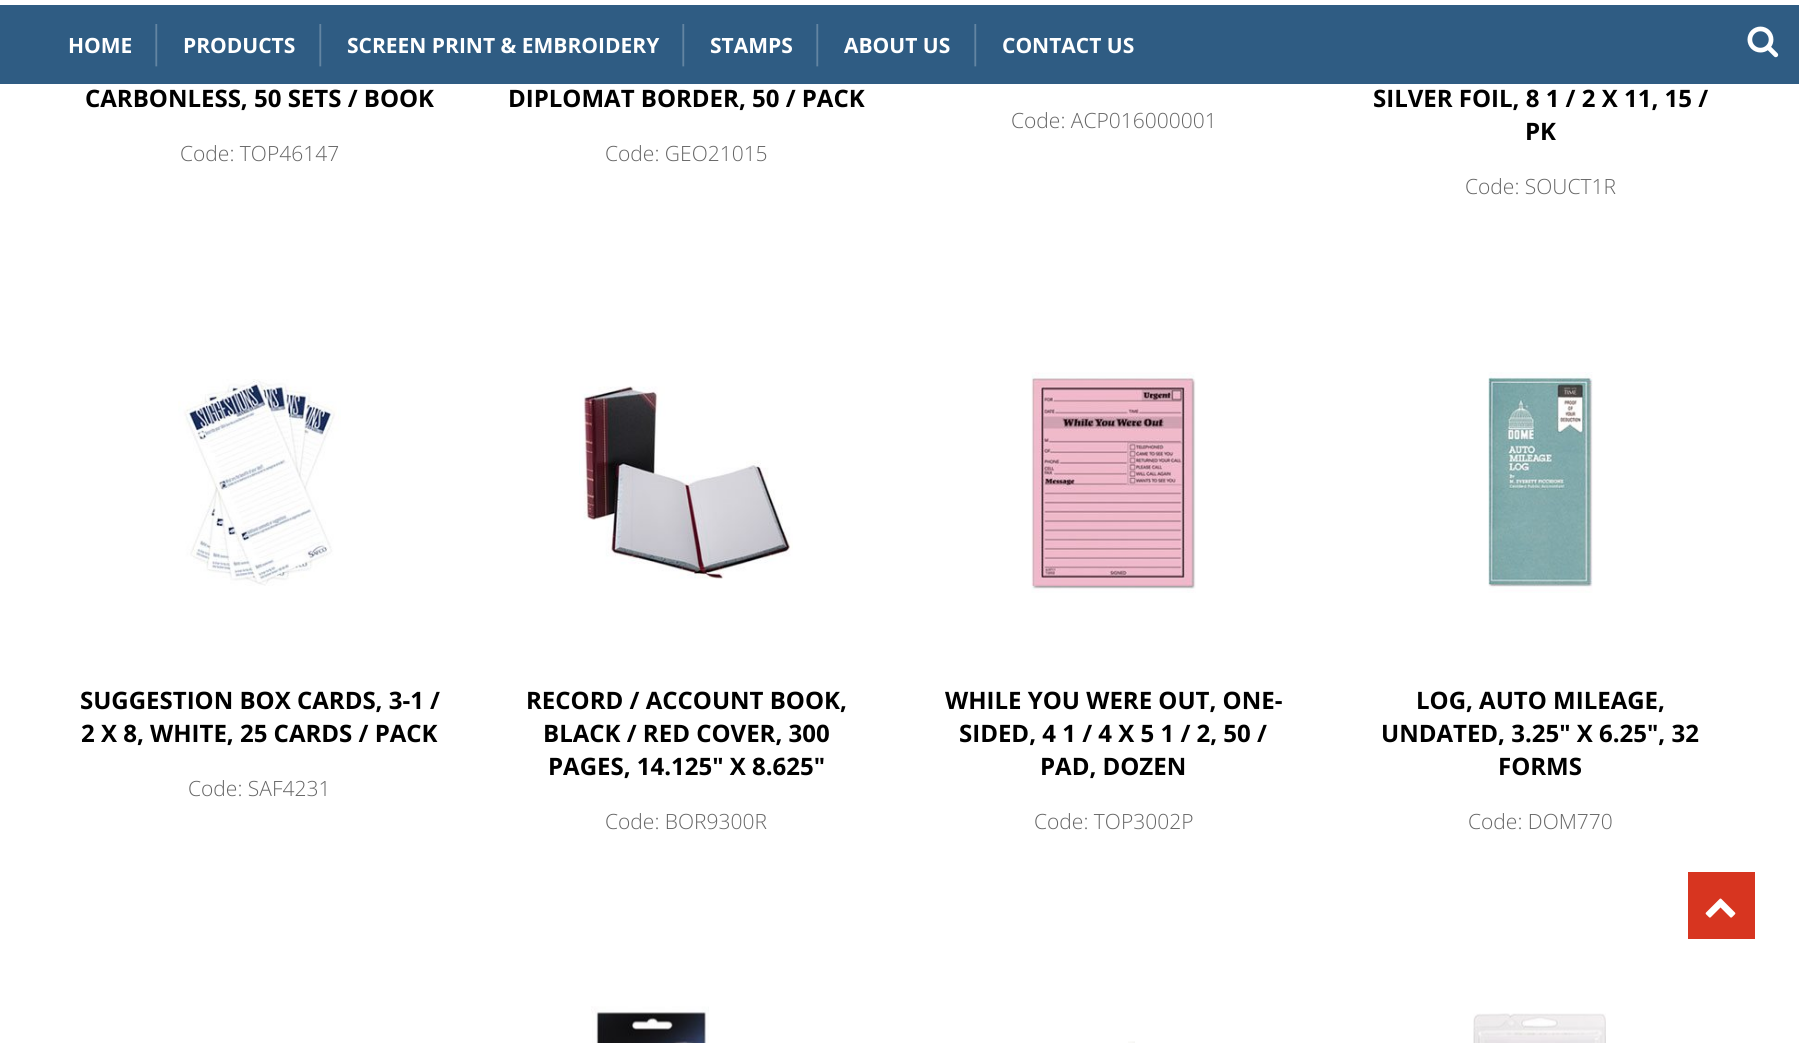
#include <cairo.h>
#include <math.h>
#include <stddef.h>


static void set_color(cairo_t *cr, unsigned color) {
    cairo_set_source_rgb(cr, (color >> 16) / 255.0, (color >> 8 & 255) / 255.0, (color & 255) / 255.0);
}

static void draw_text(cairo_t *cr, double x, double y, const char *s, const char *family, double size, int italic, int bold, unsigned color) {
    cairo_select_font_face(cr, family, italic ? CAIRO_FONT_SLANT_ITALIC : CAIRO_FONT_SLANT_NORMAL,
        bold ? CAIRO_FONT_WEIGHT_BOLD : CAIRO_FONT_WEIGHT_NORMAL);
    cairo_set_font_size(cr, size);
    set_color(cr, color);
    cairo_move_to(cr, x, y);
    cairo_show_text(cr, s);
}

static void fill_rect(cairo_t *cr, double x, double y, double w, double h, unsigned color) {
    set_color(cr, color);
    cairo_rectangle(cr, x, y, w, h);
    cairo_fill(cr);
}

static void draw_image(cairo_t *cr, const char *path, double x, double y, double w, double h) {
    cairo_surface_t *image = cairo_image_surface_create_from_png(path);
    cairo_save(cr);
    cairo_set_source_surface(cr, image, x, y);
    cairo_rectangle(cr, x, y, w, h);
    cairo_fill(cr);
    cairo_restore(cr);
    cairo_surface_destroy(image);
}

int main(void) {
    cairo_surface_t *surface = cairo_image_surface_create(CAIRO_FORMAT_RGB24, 1799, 1043);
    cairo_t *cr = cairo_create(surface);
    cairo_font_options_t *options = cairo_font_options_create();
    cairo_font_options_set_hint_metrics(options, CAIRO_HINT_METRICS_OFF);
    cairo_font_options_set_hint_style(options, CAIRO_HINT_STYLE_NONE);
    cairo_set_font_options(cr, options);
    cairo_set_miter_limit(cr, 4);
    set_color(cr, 0xFFFFFF);
    cairo_paint(cr);
    fill_rect(cr, 0, 5, 1799, 79, 0x2F5C83);
    draw_text(cr, 68, 53, "HOME", "Open Sans", 21, 0, 1, 0xFFFFFF);
    draw_text(cr, 145, 56, "|", "Open Sans Light", 42, 0, 0, 0x6385A2);
    draw_text(cr, 183, 53, "PRODUCTS", "Open Sans", 21, 0, 1, 0xFFFFFF);
    draw_text(cr, 309, 56, "|", "Open Sans Light", 42, 0, 0, 0x6385A2);
    draw_text(cr, 347, 53, "SCREEN PRINT & EMBROIDERY", "Open Sans", 21, 0, 1, 0xFFFFFF);
    draw_text(cr, 672, 56, "|", "Open Sans Light", 42, 0, 0, 0x6385A2);
    draw_text(cr, 710, 53, "STAMPS", "Open Sans", 21, 0, 1, 0xFFFFFF);
    draw_text(cr, 806, 56, "|", "Open Sans Light", 42, 0, 0, 0x6385A2);
    draw_text(cr, 844, 53, "ABOUT US", "Open Sans", 21, 0, 1, 0xFFFFFF);
    draw_text(cr, 964, 56, "|", "Open Sans Light", 42, 0, 0, 0x6385A2);
    draw_text(cr, 1002, 53, "CONTACT US", "Open Sans", 21, 0, 1, 0xFFFFFF);
    draw_image(cr, "assets/img1.png", 1747, 26, 32, 32);
    draw_text(cr, 85, 107, "CARBONLESS, 50 SETS / BOOK", "Open Sans", 24, 0, 1, 0x000000);
    draw_text(cr, 180, 161, "Code: TOP46147", "Open Sans Light", 21, 0, 0, 0x666666);
    draw_text(cr, 508, 107, "DIPLOMAT BORDER, 50 / PACK", "Open Sans", 24, 0, 1, 0x000000);
    draw_text(cr, 605, 161, "Code: GEO21015", "Open Sans Light", 21, 0, 0, 0x666666);
    draw_text(cr, 1011, 128, "Code: ACP016000001", "Open Sans Light", 21, 0, 0, 0x666666);
    draw_text(cr, 1373, 107, "SILVER FOIL, 8 1 / 2 X 11, 15 /", "Open Sans", 24, 0, 1, 0x000000);
    draw_text(cr, 1525, 140, "PK", "Open Sans", 24, 0, 1, 0x000000);
    draw_text(cr, 1465, 194, "Code: SOUCT1R", "Open Sans Light", 21, 0, 0, 0x666666);
    draw_image(cr, "assets/img2.png", 178, 379, 163, 207);
    draw_text(cr, 80, 709, "SUGGESTION BOX CARDS, 3-1 /", "Open Sans", 24, 0, 1, 0x000000);
    draw_text(cr, 81, 742, "2 X 8, WHITE, 25 CARDS / PACK", "Open Sans", 24, 0, 1, 0x000000);
    draw_text(cr, 188, 796, "Code: SAF4231", "Open Sans Light", 21, 0, 0, 0x666666);
    draw_image(cr, "assets/img3.png", 579, 386, 214, 193);
    draw_text(cr, 526, 709, "RECORD / ACCOUNT BOOK,", "Open Sans", 24, 0, 1, 0x000000);
    draw_text(cr, 543, 742, "BLACK / RED COVER, 300", "Open Sans", 24, 0, 1, 0x000000);
    draw_text(cr, 548, 775, "PAGES, 14.125\" X 8.625\"", "Open Sans", 24, 0, 1, 0x000000);
    draw_text(cr, 605, 829, "Code: BOR9300R", "Open Sans Light", 21, 0, 0, 0x666666);
    draw_image(cr, "assets/img4.png", 1031, 372, 165, 221);
    draw_text(cr, 945, 709, "WHILE YOU WERE OUT, ONE-", "Open Sans", 24, 0, 1, 0x000000);
    draw_text(cr, 959, 742, "SIDED, 4 1 / 4 X 5 1 / 2, 50 /", "Open Sans", 24, 0, 1, 0x000000);
    draw_text(cr, 1040, 775, "PAD, DOZEN", "Open Sans", 24, 0, 1, 0x000000);
    draw_text(cr, 1034, 829, "Code: TOP3002P", "Open Sans Light", 21, 0, 0, 0x666666);
    draw_image(cr, "assets/img5.png", 1488, 372, 105, 221);
    draw_text(cr, 1416, 709, "LOG, AUTO MILEAGE,", "Open Sans", 24, 0, 1, 0x000000);
    draw_text(cr, 1381, 742, "UNDATED, 3.25\" X 6.25\", 32", "Open Sans", 24, 0, 1, 0x000000);
    draw_text(cr, 1498, 775, "FORMS", "Open Sans", 24, 0, 1, 0x000000);
    draw_text(cr, 1468, 829, "Code: DOM770", "Open Sans Light", 21, 0, 0, 0x666666);
    draw_image(cr, "assets/img6.png", 591, 1006, 118, 37);
    draw_image(cr, "assets/img7.png", 1128, 1041, 7, 2);
    draw_image(cr, "assets/img8.png", 1473, 1013, 133, 30);
    fill_rect(cr, 1688, 872, 67, 67, 0xD73520);
    draw_image(cr, "assets/img9.png", 1705, 898, 31, 20);
    cairo_surface_write_to_png(surface, "output.png");
    cairo_font_options_destroy(options);
    cairo_destroy(cr);
    cairo_surface_destroy(surface);
    return 0;
}
